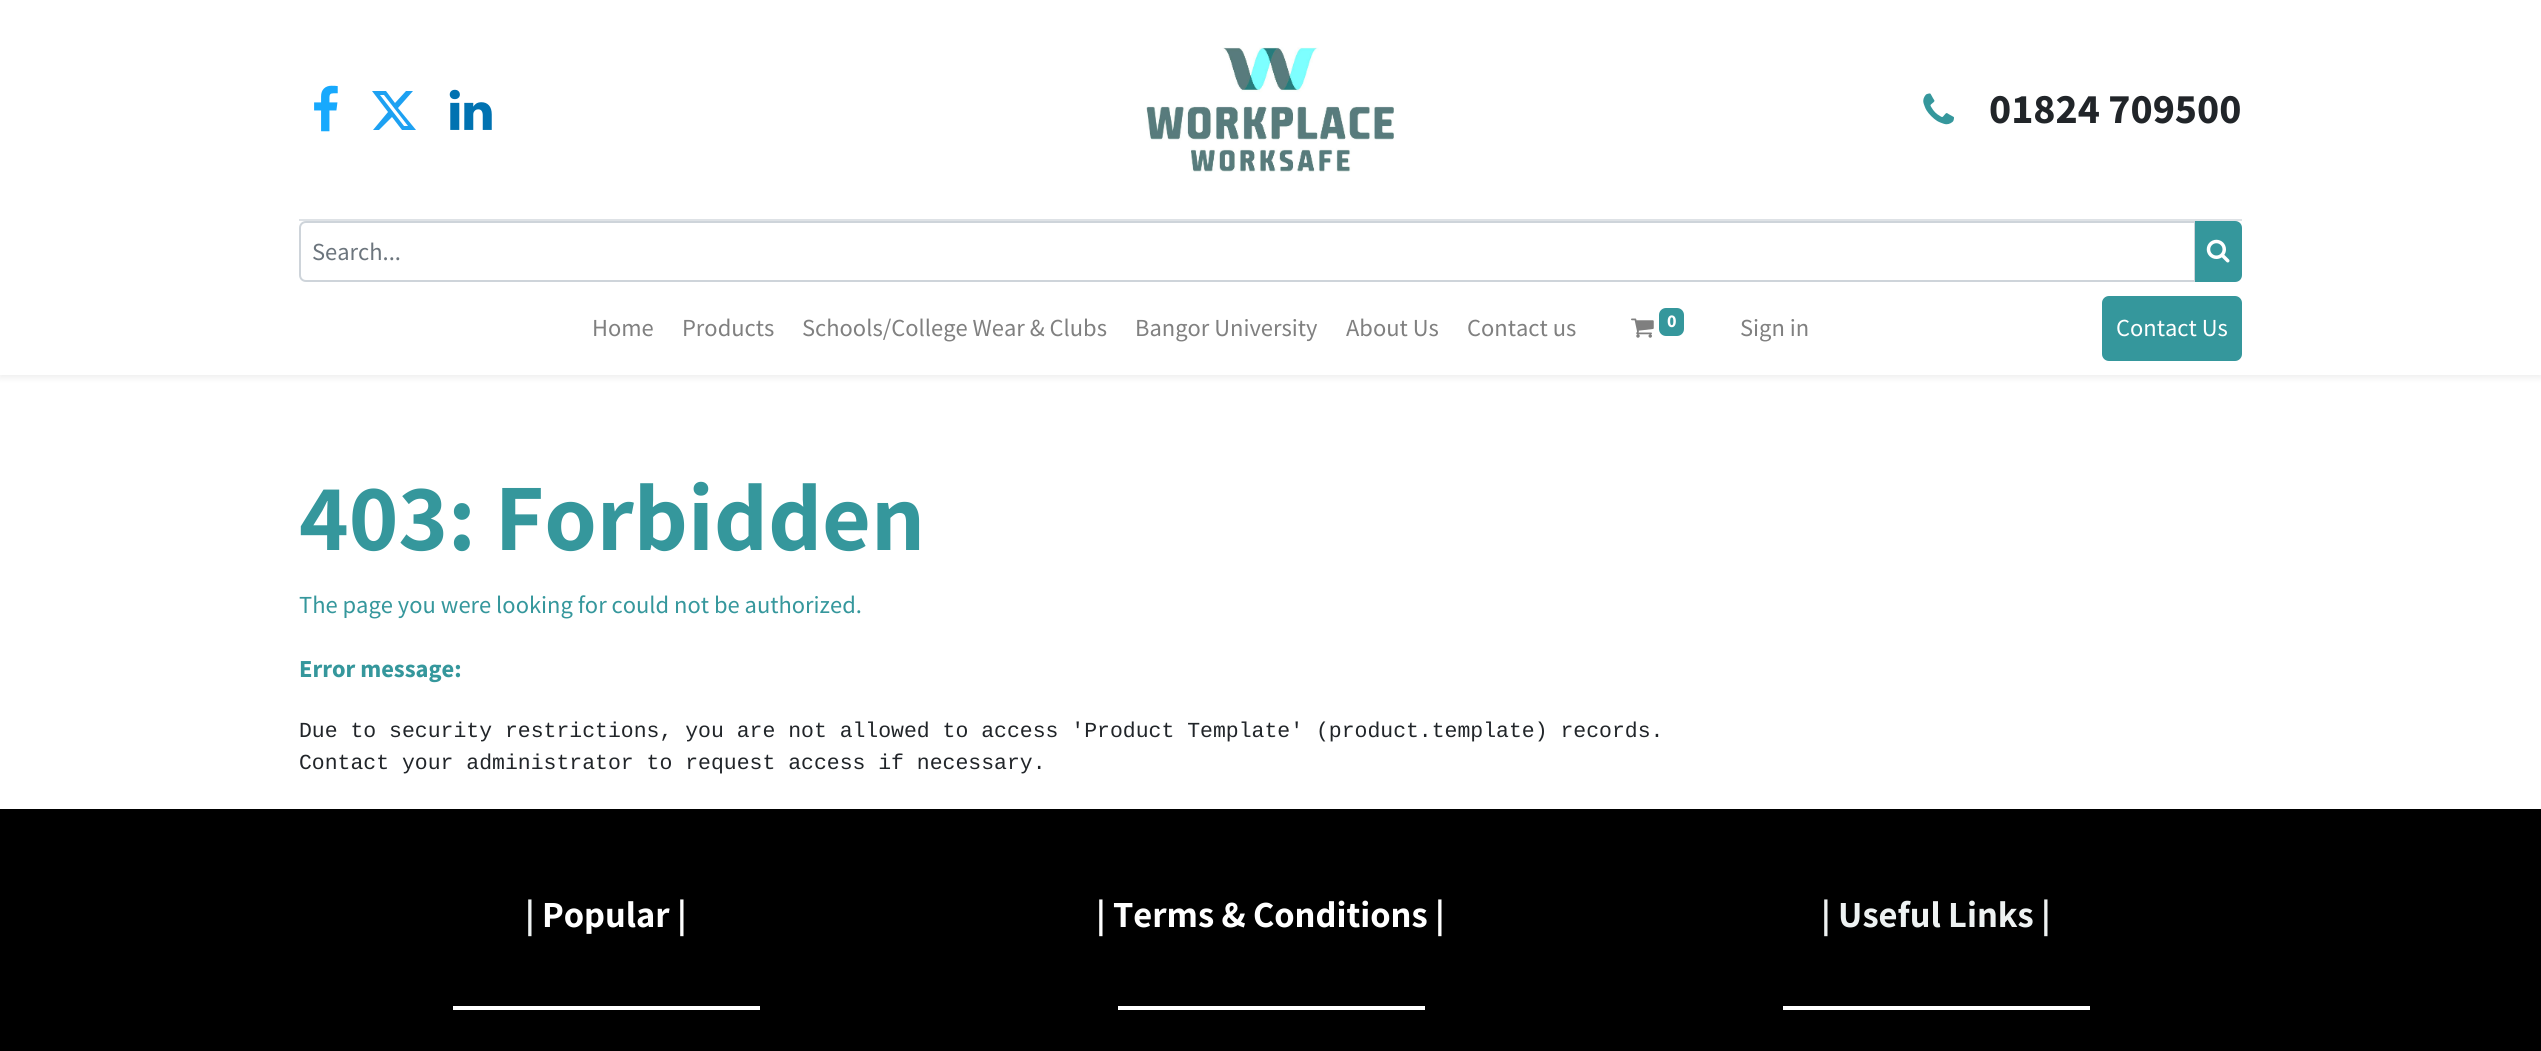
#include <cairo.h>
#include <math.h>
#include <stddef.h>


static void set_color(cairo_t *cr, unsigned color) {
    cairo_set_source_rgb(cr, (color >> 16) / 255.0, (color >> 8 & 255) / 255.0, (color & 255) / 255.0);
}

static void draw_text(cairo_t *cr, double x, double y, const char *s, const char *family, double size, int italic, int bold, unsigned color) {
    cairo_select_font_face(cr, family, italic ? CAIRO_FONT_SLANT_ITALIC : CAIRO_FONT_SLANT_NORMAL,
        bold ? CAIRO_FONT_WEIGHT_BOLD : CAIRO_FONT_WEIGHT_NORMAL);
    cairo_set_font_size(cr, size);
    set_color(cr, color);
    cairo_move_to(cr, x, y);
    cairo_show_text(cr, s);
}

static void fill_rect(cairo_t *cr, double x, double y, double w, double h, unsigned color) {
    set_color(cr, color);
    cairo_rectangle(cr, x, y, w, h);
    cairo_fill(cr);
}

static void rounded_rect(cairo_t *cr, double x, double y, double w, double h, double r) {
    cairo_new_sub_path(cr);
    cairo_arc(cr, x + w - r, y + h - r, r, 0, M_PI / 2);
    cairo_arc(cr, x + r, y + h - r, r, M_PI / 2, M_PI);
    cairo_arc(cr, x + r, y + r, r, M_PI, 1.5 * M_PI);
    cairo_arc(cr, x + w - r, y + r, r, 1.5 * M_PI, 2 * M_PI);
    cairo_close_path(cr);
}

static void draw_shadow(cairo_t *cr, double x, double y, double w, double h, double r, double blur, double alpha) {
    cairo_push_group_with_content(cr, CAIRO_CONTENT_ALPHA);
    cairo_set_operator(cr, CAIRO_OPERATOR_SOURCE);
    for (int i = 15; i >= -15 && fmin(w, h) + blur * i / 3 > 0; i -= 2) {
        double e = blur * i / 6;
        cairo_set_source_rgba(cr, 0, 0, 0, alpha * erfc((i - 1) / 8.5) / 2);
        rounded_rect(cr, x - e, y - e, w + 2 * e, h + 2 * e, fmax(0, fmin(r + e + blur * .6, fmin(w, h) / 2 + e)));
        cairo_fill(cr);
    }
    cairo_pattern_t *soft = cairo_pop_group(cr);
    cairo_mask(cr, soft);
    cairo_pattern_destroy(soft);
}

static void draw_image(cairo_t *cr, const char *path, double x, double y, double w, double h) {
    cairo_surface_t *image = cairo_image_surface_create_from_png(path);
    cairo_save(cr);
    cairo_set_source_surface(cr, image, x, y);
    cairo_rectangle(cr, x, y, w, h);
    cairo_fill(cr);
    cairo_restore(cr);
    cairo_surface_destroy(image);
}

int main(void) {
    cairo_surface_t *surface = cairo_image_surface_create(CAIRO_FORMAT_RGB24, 2541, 1051);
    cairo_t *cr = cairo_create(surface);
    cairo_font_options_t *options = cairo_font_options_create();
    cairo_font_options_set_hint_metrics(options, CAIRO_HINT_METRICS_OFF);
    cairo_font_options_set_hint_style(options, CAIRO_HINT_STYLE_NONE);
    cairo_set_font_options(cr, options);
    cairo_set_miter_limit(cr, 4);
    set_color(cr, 0xFFFFFF);
    cairo_paint(cr);
    set_color(cr, 0x000000);
    draw_shadow(cr, 0, 4, 2541, 374, 0, 3.5, 0.07);
    fill_rect(cr, 0, 0, 2541, 375, 0xFFFFFF);
    draw_image(cr, "assets/img1.png", 314, 85, 24, 47);
    set_color(cr, 0x1DA1F2);
    cairo_new_path(cr);
    cairo_move_to(cr, 406, 91);
    cairo_line_to(cr, 413, 91);
    cairo_line_to(cr, 398, 108);
    cairo_line_to(cr, 416, 130);
    cairo_line_to(cr, 402, 130);
    cairo_line_to(cr, 392, 117);
    cairo_line_to(cr, 379, 130);
    cairo_line_to(cr, 373, 130);
    cairo_line_to(cr, 388, 112);
    cairo_line_to(cr, 372, 91);
    cairo_line_to(cr, 386, 91);
    cairo_line_to(cr, 395, 103);
    cairo_close_path(cr);
    cairo_move_to(cr, 404, 126);
    cairo_line_to(cr, 408, 126);
    cairo_line_to(cr, 384, 95);
    cairo_line_to(cr, 380, 95);
    cairo_close_path(cr);
    cairo_fill(cr);
    draw_image(cr, "assets/img2.png", 449, 89, 43, 41);
    draw_image(cr, "assets/img3.png", 1146, 47, 248, 125);
    draw_image(cr, "assets/img4.png", 1923, 93, 31, 32);
    draw_text(cr, 1989, 123, "01824 709500", "Source Sans Pro", 42, 0, 1, 0x212529);
    fill_rect(cr, 299, 219, 1943, 2, 0xDEE2E6);
    cairo_new_path(cr);
    cairo_move_to(cr, 306, 222);
    cairo_line_to(cr, 2195, 222);
    cairo_line_to(cr, 2195, 281);
    cairo_line_to(cr, 306, 281);
    cairo_curve_to(cr, 302.5, 281, 300, 278.5, 300, 275);
    cairo_line_to(cr, 300, 228);
    cairo_curve_to(cr, 300, 224.5, 302.5, 222, 306, 222);
    cairo_close_path(cr);
    set_color(cr, 0xCED4DA);
    cairo_stroke(cr);
    draw_text(cr, 312, 260, "Search...", "Source Sans Pro", 24.5, 0, 0, 0x6C757D);
    set_color(cr, 0x35979C);
    cairo_new_path(cr);
    cairo_move_to(cr, 2196, 222);
    cairo_line_to(cr, 2235, 222);
    cairo_curve_to(cr, 2238.5, 222, 2241, 224.5, 2241, 228);
    cairo_line_to(cr, 2241, 275);
    cairo_curve_to(cr, 2241, 278.5, 2238.5, 281, 2235, 281);
    cairo_line_to(cr, 2196, 281);
    cairo_close_path(cr);
    cairo_fill_preserve(cr);
    cairo_stroke(cr);
    draw_image(cr, "assets/img5.png", 2206, 239, 24, 24);
    draw_text(cr, 592, 336, "Home", "Source Sans Pro", 24.5, 0, 0, 0x808080);
    draw_text(cr, 682, 336, "Products", "Source Sans Pro", 24.5, 0, 0, 0x808080);
    draw_text(cr, 802, 336, "Schools/College Wear & Clubs", "Source Sans Pro", 24.5, 0, 0, 0x808080);
    draw_text(cr, 1135, 336, "Bangor University", "Source Sans Pro", 24.5, 0, 0, 0x808080);
    draw_text(cr, 1346, 336, "About Us", "Source Sans Pro", 24.5, 0, 0, 0x808080);
    draw_text(cr, 1467, 336, "Contact us", "Source Sans Pro", 24.5, 0, 0, 0x808080);
    draw_image(cr, "assets/img6.png", 1631, 318, 23, 20);
    set_color(cr, 0x35979C);
    rounded_rect(cr, 1659, 308, 25, 28, 7);
    cairo_fill(cr);
    draw_text(cr, 1667, 327, "0", "Source Sans Pro", 18, 0, 1, 0xFFFFFF);
    draw_text(cr, 1740, 336, "Sign in", "Source Sans Pro", 24.5, 0, 0, 0x808080);
    set_color(cr, 0x35979C);
    rounded_rect(cr, 2104, 298, 136, 61, 5);
    cairo_fill_preserve(cr);
    cairo_set_line_width(cr, 4);
    cairo_stroke(cr);
    draw_text(cr, 2116, 336, "Contact Us", "Source Sans Pro", 24.5, 0, 0, 0xFFFFFF);
    draw_text(cr, 299, 550, "403: Forbidden", "Assistant", 95, 0, 1, 0x35979C);
    draw_text(cr, 299, 613, "The page you were looking for could not be authorized.", "Source Sans Pro", 24.5, 0, 0, 0x35979C);
    draw_text(cr, 299, 677, "Error message:", "Source Sans Pro", 24.5, 0, 1, 0x35979C);
    draw_text(cr, 299, 737, "Due to security restrictions, you are not allowed to access 'Product Template' (product.template) records.", "Liberation Mono", 21.45, 0, 0, 0x212529);
    draw_text(cr, 299, 769, "Contact your administrator to request access if necessary.", "Liberation Mono", 21.45, 0, 0, 0x212529);
    fill_rect(cr, 0, 809, 2541, 242, 0x000000);
    draw_text(cr, 525, 927, "|", "Assistant", 36.75, 0, 1, 0xEEF2F2);
    draw_text(cr, 542, 927, "Popular |", "Assistant", 36.75, 0, 1, 0xFFFFFF);
    fill_rect(cr, 453, 1006, 307, 4, 0xFFFFFF);
    draw_text(cr, 1096, 927, "| Terms & Conditions |", "Assistant", 36.75, 0, 1, 0xFFFFFF);
    fill_rect(cr, 1118, 1006, 307, 4, 0xFFFFFF);
    draw_text(cr, 1821, 927, "| Useful Links |", "Assistant", 36.75, 0, 1, 0xEEF2F2);
    fill_rect(cr, 1783, 1006, 307, 4, 0xFFFFFF);
    cairo_surface_write_to_png(surface, "output.png");
    cairo_font_options_destroy(options);
    cairo_destroy(cr);
    cairo_surface_destroy(surface);
    return 0;
}
